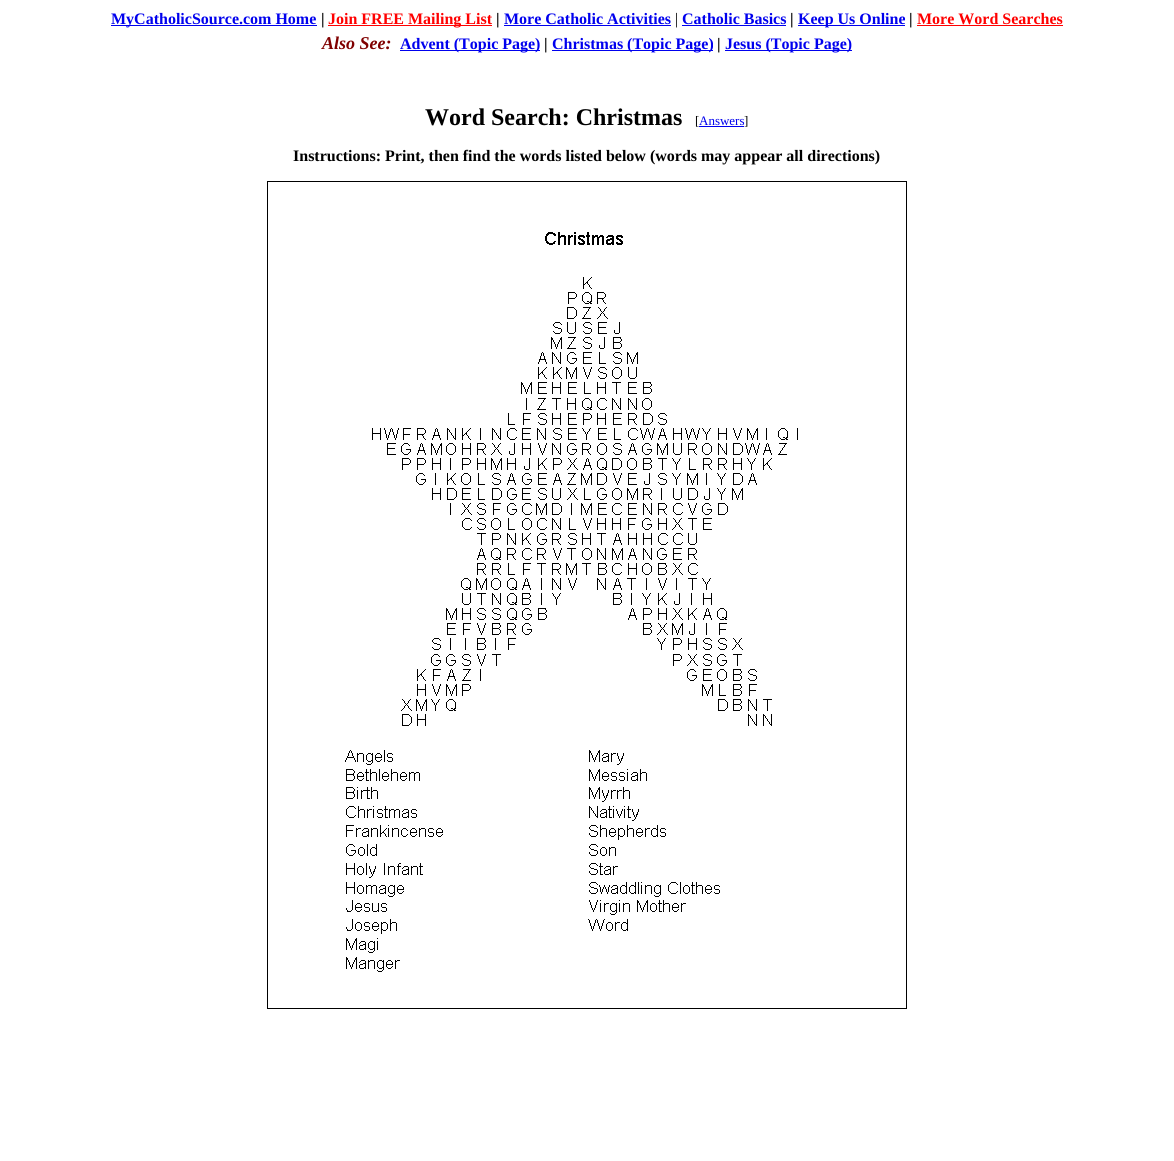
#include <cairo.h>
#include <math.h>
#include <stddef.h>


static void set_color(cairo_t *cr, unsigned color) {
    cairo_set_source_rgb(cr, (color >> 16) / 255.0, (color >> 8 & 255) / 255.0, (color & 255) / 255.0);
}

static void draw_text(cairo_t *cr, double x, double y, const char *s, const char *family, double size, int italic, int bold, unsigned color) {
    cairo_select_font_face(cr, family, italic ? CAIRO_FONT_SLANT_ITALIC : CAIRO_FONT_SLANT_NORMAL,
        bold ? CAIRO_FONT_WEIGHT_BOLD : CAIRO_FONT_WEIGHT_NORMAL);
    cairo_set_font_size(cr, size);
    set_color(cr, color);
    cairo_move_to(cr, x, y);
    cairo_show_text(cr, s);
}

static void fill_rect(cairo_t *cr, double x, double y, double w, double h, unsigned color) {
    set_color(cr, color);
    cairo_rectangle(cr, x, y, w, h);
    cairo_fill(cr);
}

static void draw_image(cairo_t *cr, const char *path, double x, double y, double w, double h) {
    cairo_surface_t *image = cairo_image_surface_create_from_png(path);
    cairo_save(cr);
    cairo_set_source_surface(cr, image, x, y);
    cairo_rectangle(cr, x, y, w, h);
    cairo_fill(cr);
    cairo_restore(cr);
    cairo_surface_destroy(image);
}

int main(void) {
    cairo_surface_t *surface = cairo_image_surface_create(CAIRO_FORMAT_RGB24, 1174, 1161);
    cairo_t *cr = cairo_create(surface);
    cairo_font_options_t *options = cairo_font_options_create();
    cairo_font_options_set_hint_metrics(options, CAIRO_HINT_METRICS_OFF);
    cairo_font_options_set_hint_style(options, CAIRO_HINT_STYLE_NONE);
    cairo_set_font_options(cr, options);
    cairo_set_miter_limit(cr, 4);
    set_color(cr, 0xFFFFFF);
    cairo_paint(cr);
    fill_rect(cr, 111, 25, 206, 1, 0x0000EE);
    draw_text(cr, 111, 24, "MyCatholicSource.com Home", "Liberation Serif", 16, 0, 1, 0x0000EE);
    draw_text(cr, 321, 24, "|", "Liberation Serif", 16, 0, 1, 0x000000);
    fill_rect(cr, 328, 25, 164, 1, 0xFF0000);
    draw_text(cr, 328, 24, "Join FREE Mailing List", "Liberation Serif", 16, 0, 1, 0xFF0000);
    draw_text(cr, 496, 24, "|", "Liberation Serif", 16, 0, 1, 0x000000);
    draw_text(cr, 504, 24, "More Catholic Activities", "Liberation Serif", 16, 0, 1, 0x0000EE);
    fill_rect(cr, 504, 25, 167, 1, 0x0000EE);
    draw_text(cr, 675, 24, "|", "Liberation Serif", 16, 0, 0, 0x000000);
    draw_text(cr, 682, 24, "Catholic Basics", "Liberation Serif", 16, 0, 1, 0x0000EE);
    fill_rect(cr, 682, 25, 104, 1, 0x0000EE);
    draw_text(cr, 790, 24, "|", "Liberation Serif", 16, 0, 1, 0x000000);
    fill_rect(cr, 798, 25, 107, 1, 0x0000EE);
    draw_text(cr, 798, 24, "Keep Us Online", "Liberation Serif", 16, 0, 1, 0x0000EE);
    draw_text(cr, 909, 24, "|", "Liberation Serif", 16, 0, 1, 0x000000);
    draw_text(cr, 917, 24, "More Word Searches", "Liberation Serif", 16, 0, 1, 0xFF0000);
    fill_rect(cr, 917, 25, 146, 1, 0xFF0000);
    draw_text(cr, 322, 49, "Also See:", "Liberation Serif", 18, 1, 1, 0x800000);
    fill_rect(cr, 400, 50, 140, 1, 0x0000EE);
    draw_text(cr, 400, 49, "Advent (Topic Page)", "Liberation Serif", 16, 0, 1, 0x0000EE);
    draw_text(cr, 544, 49, "|", "Liberation Serif", 16, 0, 1, 0x000000);
    fill_rect(cr, 552, 50, 161, 1, 0x0000EE);
    draw_text(cr, 552, 49, "Christmas (Topic Page)", "Liberation Serif", 16, 0, 1, 0x0000EE);
    draw_text(cr, 717, 49, "|", "Liberation Serif", 16, 0, 1, 0x000000);
    fill_rect(cr, 725, 50, 127, 1, 0x0000EE);
    draw_text(cr, 725, 49, "Jesus (Topic Page)", "Liberation Serif", 16, 0, 1, 0x0000EE);
    draw_text(cr, 425, 125, "Word Search: Christmas", "Liberation Serif", 24, 0, 1, 0x000000);
    draw_text(cr, 695, 125, "[", "Liberation Serif", 13, 0, 0, 0x000000);
    fill_rect(cr, 699, 126, 45, 1, 0x0000EE);
    draw_text(cr, 699, 125, "Answers", "Liberation Serif", 13, 0, 0, 0x0000EE);
    draw_text(cr, 744, 125, "]", "Liberation Serif", 13, 0, 0, 0x000000);
    draw_text(cr, 293, 161, "Instructions: Print, then find the words listed below (words may appear all directions)", "Liberation Serif", 16, 0, 1, 0x000000);
    draw_image(cr, "assets/img1.png", 267, 181, 640, 828);
    cairo_surface_write_to_png(surface, "output.png");
    cairo_font_options_destroy(options);
    cairo_destroy(cr);
    cairo_surface_destroy(surface);
    return 0;
}
